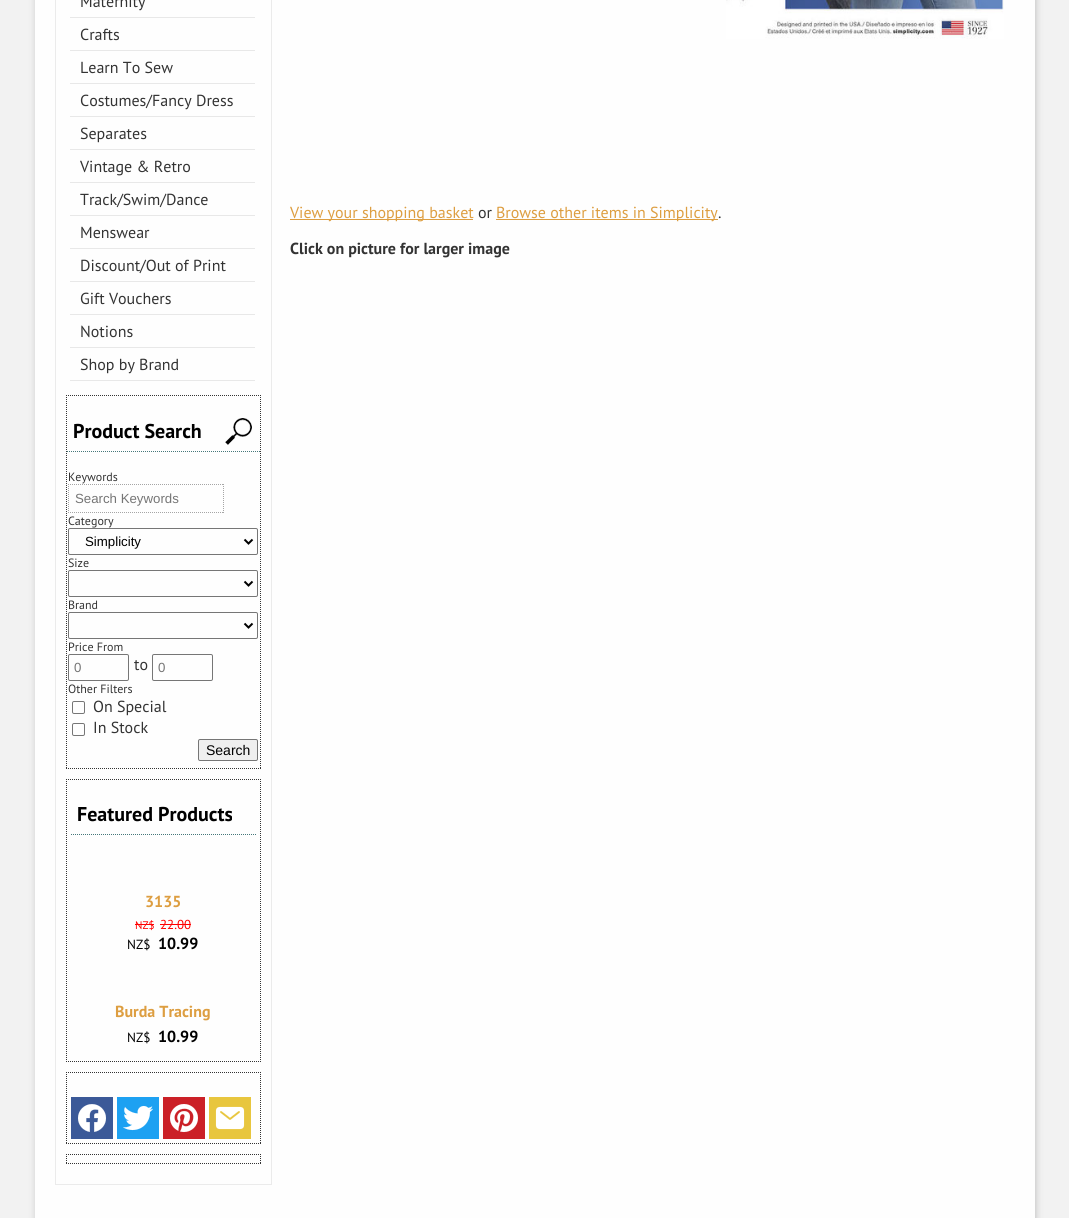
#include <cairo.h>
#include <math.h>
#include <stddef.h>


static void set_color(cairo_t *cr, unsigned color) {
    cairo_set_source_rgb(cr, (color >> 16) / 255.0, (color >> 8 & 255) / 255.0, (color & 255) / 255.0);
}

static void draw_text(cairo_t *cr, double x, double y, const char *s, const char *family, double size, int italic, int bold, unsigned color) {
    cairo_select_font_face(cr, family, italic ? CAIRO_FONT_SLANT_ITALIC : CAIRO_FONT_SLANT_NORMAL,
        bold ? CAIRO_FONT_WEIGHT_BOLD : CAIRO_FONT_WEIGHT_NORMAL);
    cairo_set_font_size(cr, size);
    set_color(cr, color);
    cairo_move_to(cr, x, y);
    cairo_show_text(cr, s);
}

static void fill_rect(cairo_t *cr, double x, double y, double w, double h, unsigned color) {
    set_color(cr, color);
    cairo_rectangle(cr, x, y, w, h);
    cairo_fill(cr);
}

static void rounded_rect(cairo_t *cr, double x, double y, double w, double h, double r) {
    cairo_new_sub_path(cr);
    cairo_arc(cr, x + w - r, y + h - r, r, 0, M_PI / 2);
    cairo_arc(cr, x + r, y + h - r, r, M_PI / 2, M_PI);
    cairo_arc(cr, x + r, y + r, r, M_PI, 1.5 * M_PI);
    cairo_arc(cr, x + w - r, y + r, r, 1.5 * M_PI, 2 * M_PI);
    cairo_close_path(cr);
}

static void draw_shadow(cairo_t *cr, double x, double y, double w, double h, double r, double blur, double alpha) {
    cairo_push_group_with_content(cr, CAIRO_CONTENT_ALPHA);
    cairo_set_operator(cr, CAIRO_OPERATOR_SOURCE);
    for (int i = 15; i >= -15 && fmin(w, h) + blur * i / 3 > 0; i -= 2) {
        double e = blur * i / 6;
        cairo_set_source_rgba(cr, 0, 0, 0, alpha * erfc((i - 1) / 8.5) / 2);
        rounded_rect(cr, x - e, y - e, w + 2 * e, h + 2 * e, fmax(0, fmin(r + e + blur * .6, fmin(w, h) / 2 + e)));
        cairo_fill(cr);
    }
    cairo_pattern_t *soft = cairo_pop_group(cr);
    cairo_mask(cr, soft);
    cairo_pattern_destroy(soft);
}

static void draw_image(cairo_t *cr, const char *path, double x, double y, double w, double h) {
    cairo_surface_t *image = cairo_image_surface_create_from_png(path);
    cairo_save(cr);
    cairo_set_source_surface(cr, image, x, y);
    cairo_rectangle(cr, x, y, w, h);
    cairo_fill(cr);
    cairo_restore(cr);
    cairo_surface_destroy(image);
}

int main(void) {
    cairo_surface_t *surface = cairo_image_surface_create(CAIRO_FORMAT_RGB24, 1069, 1218);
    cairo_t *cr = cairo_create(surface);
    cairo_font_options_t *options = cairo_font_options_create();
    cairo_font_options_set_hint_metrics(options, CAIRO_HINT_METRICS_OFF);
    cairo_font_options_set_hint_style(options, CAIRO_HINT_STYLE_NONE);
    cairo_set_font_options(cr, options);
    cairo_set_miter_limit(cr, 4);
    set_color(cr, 0xF2F2F2);
    cairo_paint(cr);
    set_color(cr, 0x000000);
    draw_shadow(cr, 36, -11, 1000, 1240, 0, 3.5, 0.2);
    fill_rect(cr, 35, 0, 1000, 1218, 0xFEFEFE);
    cairo_rectangle(cr, 55.5, -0.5, 216, 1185);
    set_color(cr, 0xEBEBEB);
    cairo_set_line_width(cr, 1);
    cairo_stroke(cr);
    fill_rect(cr, 70, 17, 185, 1, 0xE8E8E8);
    draw_text(cr, 80, 7, "Maternity", "PT Sans", 16, 0, 0, 0x333333);
    fill_rect(cr, 70, 50, 185, 1, 0xE8E8E8);
    draw_text(cr, 80, 40, "Crafts", "PT Sans", 16, 0, 0, 0x333333);
    fill_rect(cr, 70, 83, 185, 1, 0xE8E8E8);
    draw_text(cr, 80, 73, "Learn To Sew", "PT Sans", 16, 0, 0, 0x333333);
    fill_rect(cr, 70, 116, 185, 1, 0xE8E8E8);
    draw_text(cr, 80, 106, "Costumes/Fancy Dress", "PT Sans", 16, 0, 0, 0x333333);
    fill_rect(cr, 70, 149, 185, 1, 0xE8E8E8);
    draw_text(cr, 80, 139, "Separates", "PT Sans", 16, 0, 0, 0x333333);
    fill_rect(cr, 70, 182, 185, 1, 0xE8E8E8);
    draw_text(cr, 80, 172, "Vintage & Retro", "PT Sans", 16, 0, 0, 0x333333);
    fill_rect(cr, 70, 215, 185, 1, 0xE8E8E8);
    draw_text(cr, 80, 205, "Track/Swim/Dance", "PT Sans", 16, 0, 0, 0x333333);
    fill_rect(cr, 70, 248, 185, 1, 0xE8E8E8);
    draw_text(cr, 80, 238, "Menswear", "PT Sans", 16, 0, 0, 0x333333);
    fill_rect(cr, 70, 281, 185, 1, 0xE8E8E8);
    draw_text(cr, 80, 271, "Discount/Out of Print", "PT Sans", 16, 0, 0, 0x333333);
    fill_rect(cr, 70, 314, 185, 1, 0xE8E8E8);
    draw_text(cr, 80, 304, "Gift Vouchers", "PT Sans", 16, 0, 0, 0x333333);
    fill_rect(cr, 70, 347, 185, 1, 0xE8E8E8);
    draw_text(cr, 80, 337, "Notions", "PT Sans", 16, 0, 0, 0x333333);
    fill_rect(cr, 70, 380, 185, 1, 0xE8E8E8);
    draw_text(cr, 80, 370, "Shop by Brand", "PT Sans", 16, 0, 0, 0x333333);
    cairo_new_path(cr);
    cairo_move_to(cr, 66, 395.5);
    cairo_line_to(cr, 261, 395.5);
    cairo_set_dash(cr, (double[]){1, 1}, 2, 0);
    cairo_stroke(cr);
    cairo_new_path(cr);
    cairo_move_to(cr, 260.5, 395);
    cairo_line_to(cr, 260.5, 769);
    cairo_stroke(cr);
    cairo_new_path(cr);
    cairo_move_to(cr, 66, 768.5);
    cairo_line_to(cr, 261, 768.5);
    cairo_stroke(cr);
    cairo_new_path(cr);
    cairo_move_to(cr, 66.5, 395);
    cairo_line_to(cr, 66.5, 769);
    cairo_stroke(cr);
    draw_image(cr, "assets/img1.png", 225, 418, 27, 27);
    cairo_new_path(cr);
    cairo_move_to(cr, 67, 451.5);
    cairo_line_to(cr, 260, 451.5);
    set_color(cr, 0x45777A);
    cairo_stroke(cr);
    draw_text(cr, 73, 438, "Product Search", "PT Sans", 20, 0, 1, 0x000000);
    draw_text(cr, 68, 481, "Keywords", "PT Sans", 12, 0, 0, 0x333333);
    cairo_new_path(cr);
    cairo_move_to(cr, 68, 484.5);
    cairo_line_to(cr, 224, 484.5);
    set_color(cr, 0xA5A5A5);
    cairo_stroke(cr);
    cairo_new_path(cr);
    cairo_move_to(cr, 223.5, 484);
    cairo_line_to(cr, 223.5, 513);
    cairo_stroke(cr);
    cairo_new_path(cr);
    cairo_move_to(cr, 68, 512.5);
    cairo_line_to(cr, 224, 512.5);
    cairo_stroke(cr);
    cairo_new_path(cr);
    cairo_move_to(cr, 68.5, 484);
    cairo_line_to(cr, 68.5, 513);
    cairo_stroke(cr);
    draw_text(cr, 75, 503, "Search Keywords", "Liberation Sans", 13.25, 0, 0, 0x757575);
    draw_text(cr, 68, 525, "Category", "PT Sans", 12, 0, 0, 0x333333);
    rounded_rect(cr, 68.5, 528.5, 189, 26, 1.5);
    set_color(cr, 0x767676);
    cairo_set_dash(cr, NULL, 0, 0);
    cairo_stroke(cr);
    cairo_new_path(cr);
    cairo_move_to(cr, 244.5, 539.5);
    cairo_line_to(cr, 248.5, 543.5);
    cairo_line_to(cr, 252.5, 539.5);
    set_color(cr, 0x000000);
    cairo_set_line_width(cr, 2);
    cairo_stroke(cr);
    draw_text(cr, 85, 546, "Simplicity", "Liberation Sans", 13.25, 0, 0, 0x000000);
    draw_text(cr, 68, 567, "Size", "PT Sans", 12, 0, 0, 0x333333);
    rounded_rect(cr, 68.5, 570.5, 189, 26, 1.5);
    set_color(cr, 0x767676);
    cairo_set_line_width(cr, 1);
    cairo_stroke(cr);
    cairo_new_path(cr);
    cairo_move_to(cr, 244.5, 581.5);
    cairo_line_to(cr, 248.5, 585.5);
    cairo_line_to(cr, 252.5, 581.5);
    set_color(cr, 0x000000);
    cairo_set_line_width(cr, 2);
    cairo_stroke(cr);
    draw_text(cr, 68, 609, "Brand", "PT Sans", 12, 0, 0, 0x333333);
    rounded_rect(cr, 68.5, 612.5, 189, 26, 1.5);
    set_color(cr, 0x767676);
    cairo_set_line_width(cr, 1);
    cairo_stroke(cr);
    cairo_new_path(cr);
    cairo_move_to(cr, 244.5, 623.5);
    cairo_line_to(cr, 248.5, 627.5);
    cairo_line_to(cr, 252.5, 623.5);
    set_color(cr, 0x000000);
    cairo_set_line_width(cr, 2);
    cairo_stroke(cr);
    draw_text(cr, 68, 651, "Price From", "PT Sans", 12, 0, 0, 0x333333);
    rounded_rect(cr, 68.5, 654.5, 60, 26, 1.5);
    set_color(cr, 0x767676);
    cairo_set_line_width(cr, 1);
    cairo_stroke(cr);
    draw_text(cr, 74, 672, "0", "Liberation Sans", 13.25, 0, 0, 0x757575);
    draw_text(cr, 134, 670, "to", "PT Sans", 16, 0, 0, 0x333333);
    rounded_rect(cr, 152.5, 654.5, 60, 26, 1.5);
    set_color(cr, 0x767676);
    cairo_stroke(cr);
    draw_text(cr, 158, 672, "0", "Liberation Sans", 13.25, 0, 0, 0x757575);
    draw_text(cr, 68, 693, "Other Filters", "PT Sans", 12, 0, 0, 0x333333);
    rounded_rect(cr, 72.5, 701.5, 12, 12, 1.5);
    set_color(cr, 0x767676);
    cairo_stroke(cr);
    draw_text(cr, 93, 712, "On Special", "PT Sans", 16, 0, 0, 0x333333);
    rounded_rect(cr, 72.5, 723.5, 12, 12, 1.5);
    set_color(cr, 0x767676);
    cairo_stroke(cr);
    draw_text(cr, 93, 733, "In Stock", "PT Sans", 16, 0, 0, 0x333333);
    set_color(cr, 0xEFEFEF);
    rounded_rect(cr, 198.5, 739.5, 59, 21, 1.5);
    cairo_fill_preserve(cr);
    set_color(cr, 0x767676);
    cairo_stroke(cr);
    draw_text(cr, 206, 755, "Search", "Liberation Sans", 14, 0, 0, 0x000000);
    cairo_new_path(cr);
    cairo_move_to(cr, 66, 779.5);
    cairo_line_to(cr, 261, 779.5);
    set_color(cr, 0x333333);
    cairo_set_dash(cr, (double[]){1, 1}, 2, 0);
    cairo_stroke(cr);
    cairo_new_path(cr);
    cairo_move_to(cr, 260.5, 779);
    cairo_line_to(cr, 260.5, 1062);
    cairo_stroke(cr);
    cairo_new_path(cr);
    cairo_move_to(cr, 66, 1061.5);
    cairo_line_to(cr, 261, 1061.5);
    cairo_stroke(cr);
    cairo_new_path(cr);
    cairo_move_to(cr, 66.5, 779);
    cairo_line_to(cr, 66.5, 1062);
    cairo_stroke(cr);
    cairo_new_path(cr);
    cairo_move_to(cr, 71, 834.5);
    cairo_line_to(cr, 256, 834.5);
    set_color(cr, 0x45777A);
    cairo_stroke(cr);
    draw_text(cr, 77, 821, "Featured Products", "PT Sans", 20, 0, 1, 0x000000);
    draw_text(cr, 145, 907, "3135", "PT Sans", 16, 0, 1, 0xDD9E41);
    draw_text(cr, 135, 929, "NZ$", "PT Sans", 11, 0, 0, 0xFF0000);
    fill_rect(cr, 135, 924, 19, 1, 0xFF0000);
    draw_text(cr, 160, 929, "22.00", "PT Sans", 13, 0, 0, 0xFF0000);
    fill_rect(cr, 160, 924, 31, 1, 0xFF0000);
    draw_text(cr, 127, 949, "NZ$", "PT Sans", 13.25, 0, 0, 0x000000);
    draw_text(cr, 158, 949, "10.99", "PT Sans", 16, 0, 1, 0x000000);
    draw_text(cr, 115, 1017, "Burda Tracing", "PT Sans", 16, 0, 1, 0xDD9E41);
    draw_text(cr, 127, 1042, "NZ$", "PT Sans", 13.25, 0, 0, 0x000000);
    draw_text(cr, 158, 1042, "10.99", "PT Sans", 16, 0, 1, 0x000000);
    cairo_new_path(cr);
    cairo_move_to(cr, 66, 1072.5);
    cairo_line_to(cr, 261, 1072.5);
    set_color(cr, 0x333333);
    cairo_stroke(cr);
    cairo_new_path(cr);
    cairo_move_to(cr, 260.5, 1072);
    cairo_line_to(cr, 260.5, 1144);
    cairo_stroke(cr);
    cairo_new_path(cr);
    cairo_move_to(cr, 66, 1143.5);
    cairo_line_to(cr, 261, 1143.5);
    cairo_stroke(cr);
    cairo_new_path(cr);
    cairo_move_to(cr, 66.5, 1072);
    cairo_line_to(cr, 66.5, 1144);
    cairo_stroke(cr);
    fill_rect(cr, 71, 1097, 42, 42, 0x3B5998);
    draw_image(cr, "assets/img2.png", 78, 1104, 28, 28);
    fill_rect(cr, 117, 1097, 42, 42, 0x1DA1F2);
    draw_image(cr, "assets/img3.png", 123, 1105, 30, 26);
    fill_rect(cr, 163, 1097, 42, 42, 0xCB2027);
    draw_image(cr, "assets/img4.png", 170, 1104, 28, 29);
    fill_rect(cr, 209, 1097, 42, 42, 0xE8C63E);
    draw_image(cr, "assets/img5.png", 215, 1106, 30, 24);
    cairo_new_path(cr);
    cairo_move_to(cr, 66, 1154.5);
    cairo_line_to(cr, 261, 1154.5);
    set_color(cr, 0x333333);
    cairo_stroke(cr);
    cairo_new_path(cr);
    cairo_move_to(cr, 260.5, 1154);
    cairo_line_to(cr, 260.5, 1164);
    cairo_stroke(cr);
    cairo_new_path(cr);
    cairo_move_to(cr, 66, 1163.5);
    cairo_line_to(cr, 261, 1163.5);
    cairo_stroke(cr);
    cairo_new_path(cr);
    cairo_move_to(cr, 66.5, 1154);
    cairo_line_to(cr, 66.5, 1164);
    cairo_stroke(cr);
    draw_image(cr, "assets/img6.png", 726, 0, 278, 39);
    fill_rect(cr, 290, 219, 183, 1, 0xDD9E41);
    draw_text(cr, 290, 218, "View your shopping basket", "PT Sans", 16, 0, 0, 0xDD9E41);
    draw_text(cr, 478, 218, "or", "PT Sans", 16, 0, 0, 0x333333);
    fill_rect(cr, 496, 219, 222, 1, 0xDD9E41);
    draw_text(cr, 496, 218, "Browse other items in Simplicity", "PT Sans", 16, 0, 0, 0xDD9E41);
    draw_text(cr, 718, 218, ".", "PT Sans", 16, 0, 0, 0x333333);
    draw_text(cr, 290, 254, "Click on picture for larger image", "PT Sans", 16, 0, 1, 0x333333);
    cairo_surface_write_to_png(surface, "output.png");
    cairo_font_options_destroy(options);
    cairo_destroy(cr);
    cairo_surface_destroy(surface);
    return 0;
}
